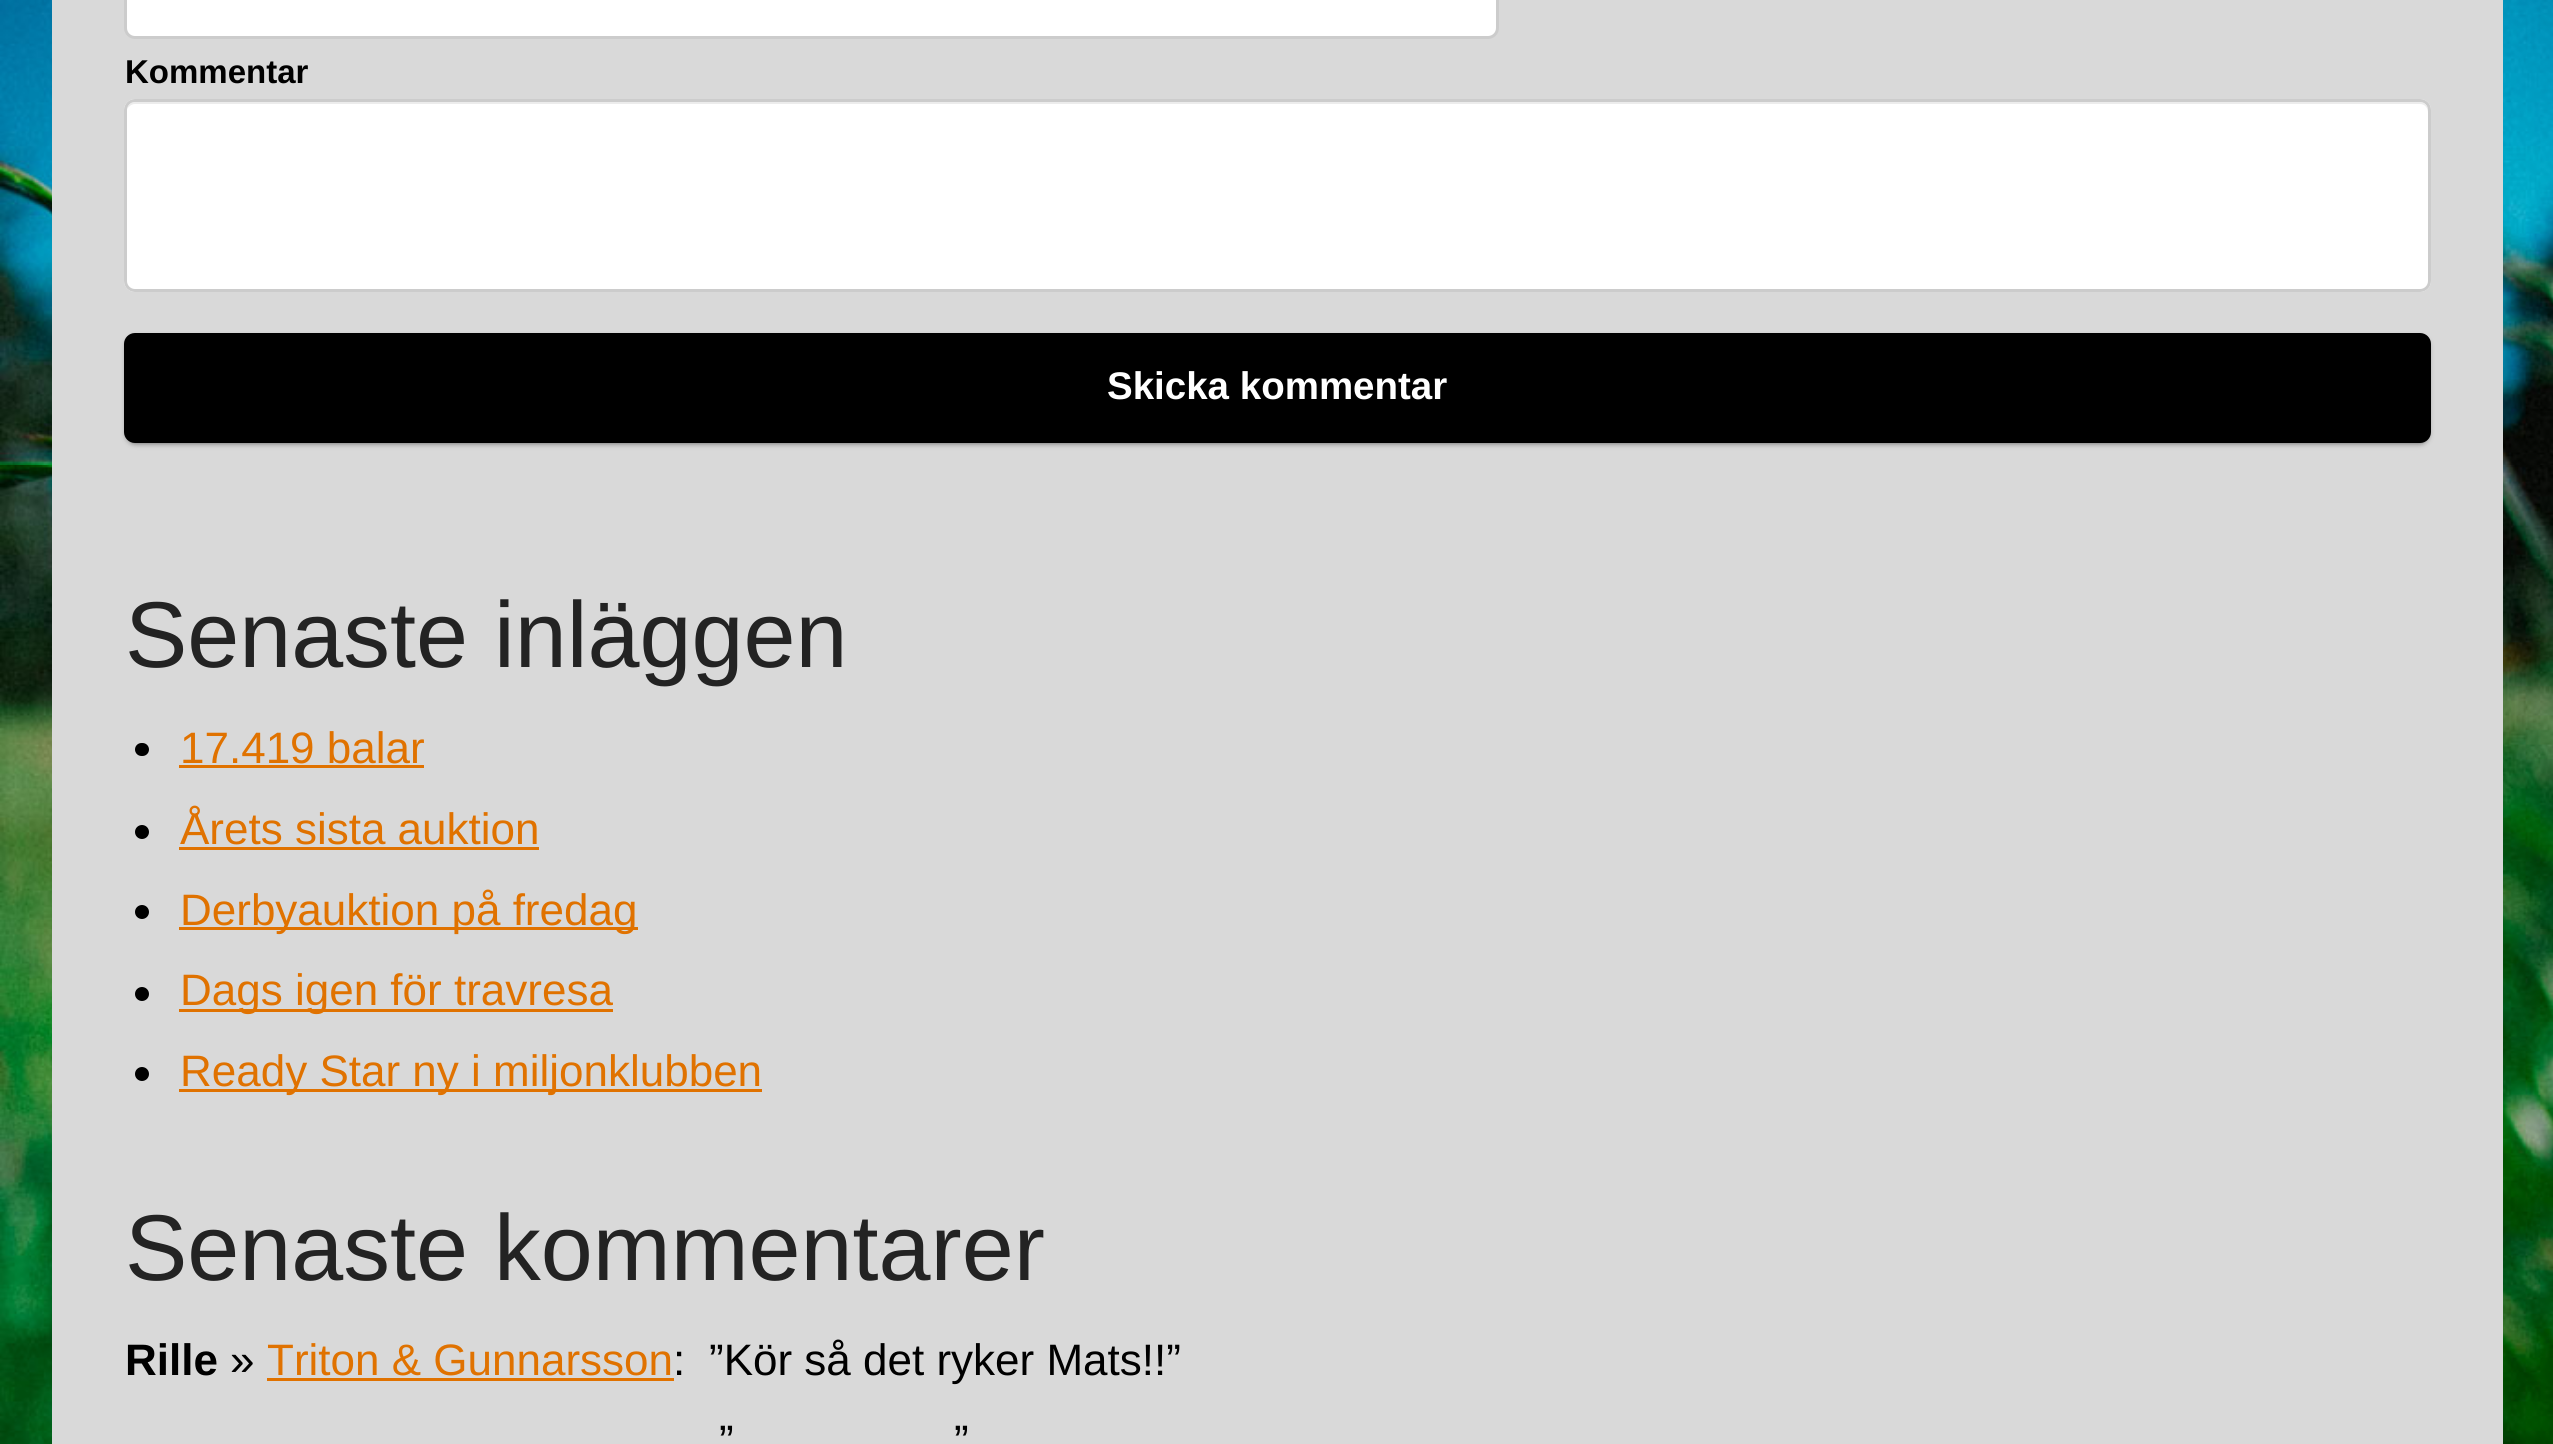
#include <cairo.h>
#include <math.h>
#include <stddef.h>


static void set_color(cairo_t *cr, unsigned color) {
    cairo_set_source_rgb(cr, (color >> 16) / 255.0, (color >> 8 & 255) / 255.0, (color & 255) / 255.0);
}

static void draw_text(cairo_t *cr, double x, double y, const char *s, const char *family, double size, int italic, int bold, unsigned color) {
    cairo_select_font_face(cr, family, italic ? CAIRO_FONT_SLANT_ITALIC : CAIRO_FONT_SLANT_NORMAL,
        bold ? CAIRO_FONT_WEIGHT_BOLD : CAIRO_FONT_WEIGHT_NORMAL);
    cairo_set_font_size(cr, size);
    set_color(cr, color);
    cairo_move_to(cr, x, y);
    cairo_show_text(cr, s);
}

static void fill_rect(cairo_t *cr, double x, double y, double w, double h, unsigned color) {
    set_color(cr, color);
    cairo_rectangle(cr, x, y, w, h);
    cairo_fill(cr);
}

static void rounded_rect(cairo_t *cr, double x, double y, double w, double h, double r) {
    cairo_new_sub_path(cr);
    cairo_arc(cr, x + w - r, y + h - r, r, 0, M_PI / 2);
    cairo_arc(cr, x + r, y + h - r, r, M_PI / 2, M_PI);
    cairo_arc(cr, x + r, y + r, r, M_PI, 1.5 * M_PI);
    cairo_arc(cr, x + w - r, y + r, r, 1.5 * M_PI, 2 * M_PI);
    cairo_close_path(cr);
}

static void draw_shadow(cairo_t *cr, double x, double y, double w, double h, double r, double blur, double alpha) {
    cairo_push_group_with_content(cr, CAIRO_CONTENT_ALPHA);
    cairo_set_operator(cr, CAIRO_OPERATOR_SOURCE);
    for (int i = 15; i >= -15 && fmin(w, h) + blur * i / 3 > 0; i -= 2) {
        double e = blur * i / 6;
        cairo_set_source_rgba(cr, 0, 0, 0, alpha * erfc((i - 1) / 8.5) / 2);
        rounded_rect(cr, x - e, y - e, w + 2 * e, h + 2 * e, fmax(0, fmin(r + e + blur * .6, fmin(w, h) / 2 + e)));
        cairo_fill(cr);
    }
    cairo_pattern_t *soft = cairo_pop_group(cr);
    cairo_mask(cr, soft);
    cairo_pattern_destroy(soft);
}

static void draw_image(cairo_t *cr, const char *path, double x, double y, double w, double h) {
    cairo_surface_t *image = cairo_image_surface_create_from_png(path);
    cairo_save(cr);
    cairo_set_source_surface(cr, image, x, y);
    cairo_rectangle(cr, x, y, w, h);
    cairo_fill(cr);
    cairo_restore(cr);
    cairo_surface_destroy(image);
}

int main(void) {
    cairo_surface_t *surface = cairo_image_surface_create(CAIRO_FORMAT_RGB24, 2553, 1444);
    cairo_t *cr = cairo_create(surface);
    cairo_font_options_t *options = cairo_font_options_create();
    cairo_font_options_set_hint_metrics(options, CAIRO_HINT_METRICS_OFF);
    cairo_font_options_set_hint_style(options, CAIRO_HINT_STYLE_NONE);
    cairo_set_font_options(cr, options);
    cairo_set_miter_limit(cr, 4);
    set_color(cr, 0xFFFFFF);
    cairo_paint(cr);
    draw_image(cr, "assets/img1.png", 0, 0, 2553, 1444);
    fill_rect(cr, 52, 0, 2451, 1444, 0xD9D9D9);
    set_color(cr, 0xFFFFFF);
    rounded_rect(cr, 125.5, -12.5, 1372, 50, 9.5);
    cairo_fill_preserve(cr);
    set_color(cr, 0xCCCCCC);
    cairo_set_line_width(cr, 3);
    cairo_stroke(cr);
    draw_text(cr, 125, 83, "Kommentar", "Liberation Sans", 33, 0, 1, 0x000000);
    set_color(cr, 0xFFFFFF);
    rounded_rect(cr, 124, 99, 2307, 193, 11);
    cairo_fill(cr);
    set_color(cr, 0xECECEC);
    cairo_new_path(cr);
    cairo_move_to(cr, 135, 104);
    cairo_line_to(cr, 2420, 104);
    cairo_curve_to(cr, 2425, 104, 2428, 108, 2428, 113);
    cairo_line_to(cr, 2428, 110);
    cairo_curve_to(cr, 2428, 106, 2424, 102, 2420, 102);
    cairo_line_to(cr, 135, 102);
    cairo_curve_to(cr, 131, 102, 128, 105, 127, 109);
    cairo_curve_to(cr, 129, 106, 132, 104, 135, 104);
    cairo_close_path(cr);
    cairo_fill(cr);
    rounded_rect(cr, 125.5, 100.5, 2304, 190, 9.5);
    set_color(cr, 0xCCCCCC);
    cairo_stroke(cr);
    set_color(cr, 0x000000);
    draw_shadow(cr, 127, 338, 2301, 105, 8, 3, 0.6);
    set_color(cr, 0x000000);
    rounded_rect(cr, 124, 333, 2307, 110, 11);
    cairo_fill(cr);
    draw_text(cr, 1107, 399, "Skicka kommentar", "Liberation Sans", 38.5, 0, 1, 0xFFFFFF);
    draw_text(cr, 125, 667, "Senaste inläggen", "Liberation Sans", 93.5, 0, 0, 0x232323);
    set_color(cr, 0x000000);
    rounded_rect(cr, 135, 743, 14, 13, 6.5);
    cairo_fill(cr);
    draw_text(cr, 180, 763, "17.419 balar", "Liberation Sans", 44, 0, 0, 0xE07200);
    fill_rect(cr, 179, 765, 245, 3, 0xE07200);
    set_color(cr, 0x000000);
    cairo_new_path(cr);
    cairo_arc(cr, 142, 832, 7, 0, 2 * M_PI);
    cairo_fill(cr);
    draw_text(cr, 180, 844, "Årets sista auktion", "Liberation Sans", 44, 0, 0, 0xE07200);
    fill_rect(cr, 179, 847, 360, 3, 0xE07200);
    set_color(cr, 0x000000);
    cairo_new_path(cr);
    cairo_arc(cr, 142, 912, 7, 0, 2 * M_PI);
    cairo_fill(cr);
    fill_rect(cr, 179, 927, 459, 3, 0xE07200);
    draw_text(cr, 180, 925, "Derbyauktion på fredag", "Liberation Sans", 44, 0, 0, 0xE07200);
    set_color(cr, 0x000000);
    cairo_new_path(cr);
    cairo_arc(cr, 142, 994, 7, 0, 2 * M_PI);
    cairo_fill(cr);
    fill_rect(cr, 179, 1009, 434, 3, 0xE07200);
    draw_text(cr, 180, 1005, "Dags igen för travresa", "Liberation Sans", 44, 0, 0, 0xE07200);
    set_color(cr, 0x000000);
    cairo_new_path(cr);
    cairo_arc(cr, 142, 1074, 7, 0, 2 * M_PI);
    cairo_fill(cr);
    fill_rect(cr, 179, 1089, 583, 3, 0xE07200);
    draw_text(cr, 180, 1086, "Ready Star ny i miljonklubben", "Liberation Sans", 44, 0, 0, 0xE07200);
    draw_text(cr, 125, 1280, "Senaste kommentarer", "Liberation Sans", 93.5, 0, 0, 0x232323);
    draw_text(cr, 125, 1375, "Rille", "Liberation Sans", 44, 0, 1, 0x000000);
    draw_text(cr, 230, 1375, "»", "Liberation Sans", 44, 0, 0, 0x000000);
    draw_text(cr, 267, 1375, "Triton & Gunnarsson", "Liberation Sans", 44, 0, 0, 0xE07200);
    fill_rect(cr, 267, 1378, 407, 3, 0xE07200);
    draw_text(cr, 673, 1375, ":", "Liberation Sans", 44, 0, 0, 0x000000);
    draw_text(cr, 709, 1375, "”Kör så det ryker Mats!!”", "Liberation Sans", 44, 0, 0, 0x000000);
    draw_text(cr, 719, 1456, "”", "Liberation Sans", 44, 0, 0, 0x000000);
    draw_text(cr, 954, 1456, "”", "Liberation Sans", 44, 0, 0, 0x000000);
    cairo_surface_write_to_png(surface, "output.png");
    cairo_font_options_destroy(options);
    cairo_destroy(cr);
    cairo_surface_destroy(surface);
    return 0;
}
